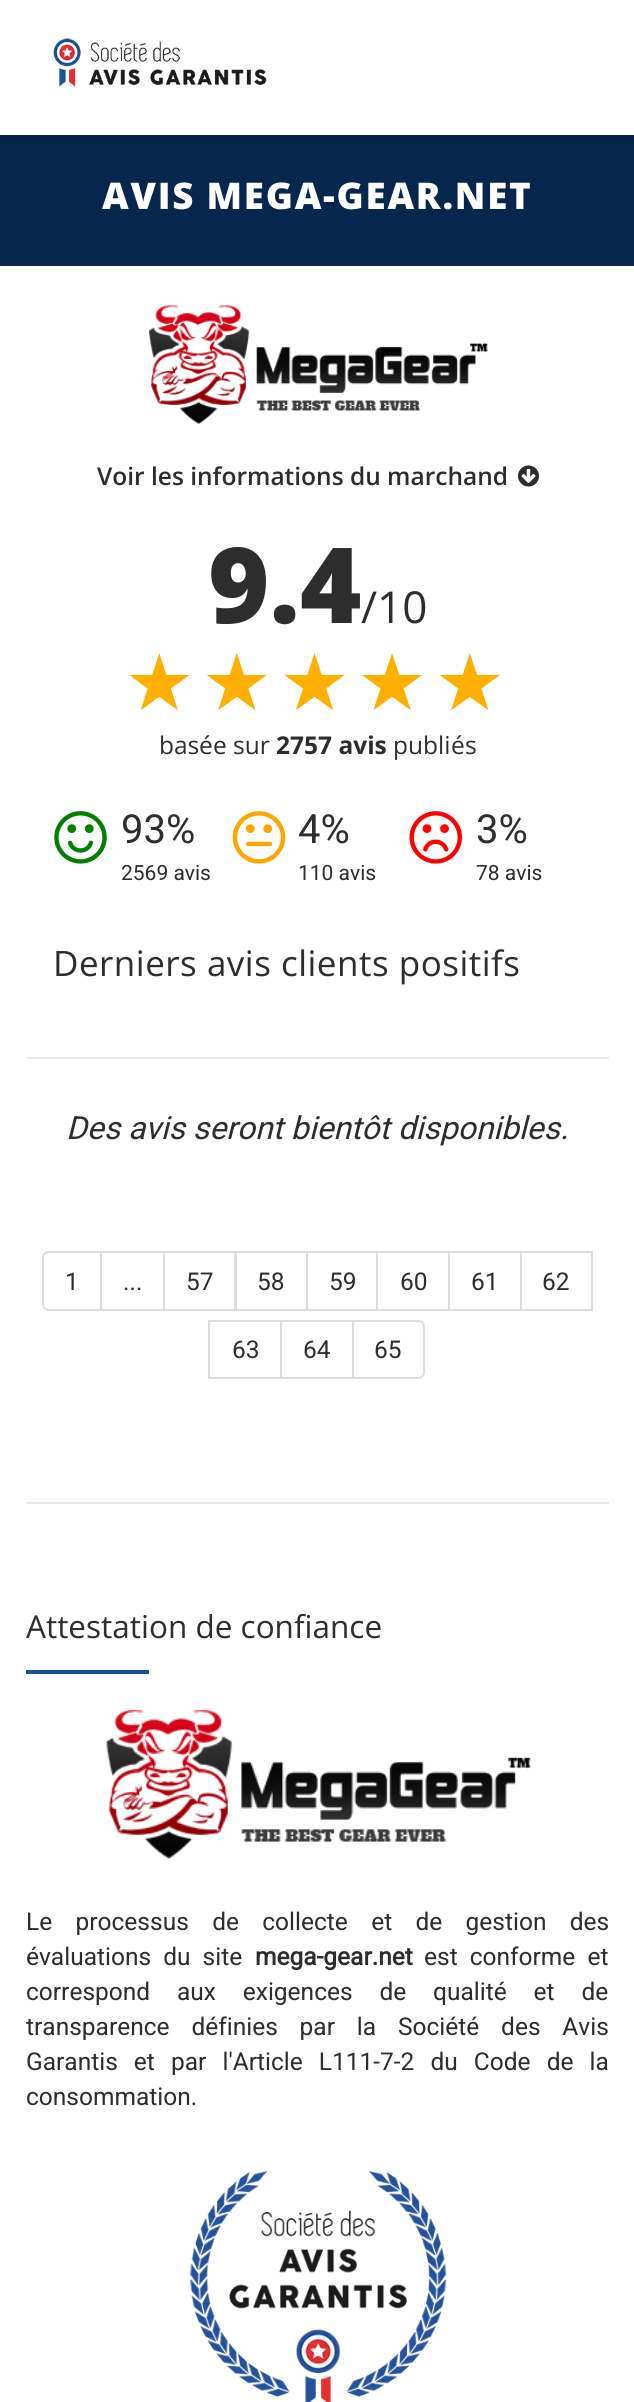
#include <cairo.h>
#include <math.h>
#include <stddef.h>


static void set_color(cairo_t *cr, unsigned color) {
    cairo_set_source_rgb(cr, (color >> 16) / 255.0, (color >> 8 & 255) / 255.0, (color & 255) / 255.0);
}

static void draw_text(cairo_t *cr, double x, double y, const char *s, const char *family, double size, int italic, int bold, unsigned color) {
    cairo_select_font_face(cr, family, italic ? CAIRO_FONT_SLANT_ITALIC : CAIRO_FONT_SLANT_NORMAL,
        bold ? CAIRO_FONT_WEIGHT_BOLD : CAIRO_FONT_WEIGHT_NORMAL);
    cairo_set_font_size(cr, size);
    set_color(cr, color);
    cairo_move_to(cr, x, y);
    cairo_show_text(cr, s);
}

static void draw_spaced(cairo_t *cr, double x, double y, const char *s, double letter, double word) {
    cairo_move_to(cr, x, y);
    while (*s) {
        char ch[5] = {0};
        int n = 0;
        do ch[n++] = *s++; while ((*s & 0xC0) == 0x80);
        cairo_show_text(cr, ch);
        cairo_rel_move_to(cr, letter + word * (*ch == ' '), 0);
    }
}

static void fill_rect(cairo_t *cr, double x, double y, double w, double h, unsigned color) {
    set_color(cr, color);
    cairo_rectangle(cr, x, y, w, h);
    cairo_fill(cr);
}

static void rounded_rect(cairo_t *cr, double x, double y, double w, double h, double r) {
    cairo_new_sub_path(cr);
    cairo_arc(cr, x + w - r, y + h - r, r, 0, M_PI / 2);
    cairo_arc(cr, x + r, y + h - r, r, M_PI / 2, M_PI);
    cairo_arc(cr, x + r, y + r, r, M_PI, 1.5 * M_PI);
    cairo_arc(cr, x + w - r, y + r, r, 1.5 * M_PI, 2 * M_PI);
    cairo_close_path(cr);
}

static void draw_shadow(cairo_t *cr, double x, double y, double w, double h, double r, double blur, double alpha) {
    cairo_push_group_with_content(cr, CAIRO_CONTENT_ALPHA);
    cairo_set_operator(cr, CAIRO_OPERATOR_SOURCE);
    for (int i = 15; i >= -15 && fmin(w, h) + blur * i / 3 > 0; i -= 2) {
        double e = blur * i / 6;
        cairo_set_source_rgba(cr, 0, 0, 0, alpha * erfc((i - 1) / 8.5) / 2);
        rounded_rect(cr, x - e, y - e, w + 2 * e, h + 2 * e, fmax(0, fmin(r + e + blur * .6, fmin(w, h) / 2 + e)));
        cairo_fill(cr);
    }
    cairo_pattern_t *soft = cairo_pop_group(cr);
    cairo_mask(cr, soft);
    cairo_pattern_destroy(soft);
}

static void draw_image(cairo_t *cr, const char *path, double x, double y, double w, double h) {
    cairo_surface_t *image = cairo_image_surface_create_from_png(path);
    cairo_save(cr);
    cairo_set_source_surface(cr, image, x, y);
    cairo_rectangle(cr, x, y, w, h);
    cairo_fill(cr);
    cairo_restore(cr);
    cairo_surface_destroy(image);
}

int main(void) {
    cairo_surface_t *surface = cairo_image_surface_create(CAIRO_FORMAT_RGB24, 634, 2402);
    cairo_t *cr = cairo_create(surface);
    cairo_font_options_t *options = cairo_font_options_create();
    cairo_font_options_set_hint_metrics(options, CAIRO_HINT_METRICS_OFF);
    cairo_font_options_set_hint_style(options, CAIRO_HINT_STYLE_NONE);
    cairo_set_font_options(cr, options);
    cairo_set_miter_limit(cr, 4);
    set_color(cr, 0xFFFFFF);
    cairo_paint(cr);
    fill_rect(cr, 0, 135, 634, 131, 0x06264D);
    set_color(cr, 0x000000);
    draw_shadow(cr, 0, 2, 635, 135, 0, 4.5, 0.2);
    fill_rect(cr, 0, 0, 634, 135, 0xFFFFFF);
    draw_image(cr, "assets/img1.png", 53, 38, 214, 49);
    cairo_select_font_face(cr, "Open Sans ExtraBold", CAIRO_FONT_SLANT_NORMAL, CAIRO_FONT_WEIGHT_NORMAL);
    cairo_set_font_size(cr, 36.75);
    draw_spaced(cr, 102, 209, "AVIS MEGA-GEAR.NET", 1.75, 0);
    fill_rect(cr, 26, 1502, 583, 2, 0xEAEAEA);
    draw_image(cr, "assets/img2.png", 148, 305, 340, 119);
    draw_text(cr, 97, 485, "Voir les informations du marchand", "Open Sans SemiBold", 24.5, 0, 0, 0x2D2D2D);
    draw_image(cr, "assets/img3.png", 518, 465, 21, 22);
    draw_text(cr, 208, 623, "9.4", "Open Sans ExtraBold", 105, 0, 0, 0x2D2D2D);
    draw_text(cr, 361, 623, "/", "Open Sans", 44, 0, 0, 0x2D2D2D);
    draw_text(cr, 377, 623, "10", "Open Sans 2", 44, 0, 0, 0x2D2D2D);
    cairo_select_font_face(cr, "DejaVu Sans", CAIRO_FONT_SLANT_NORMAL, CAIRO_FONT_WEIGHT_NORMAL);
    cairo_set_font_size(cr, 78.75);
    set_color(cr, 0xFFAF00);
    draw_spaced(cr, 124, 710, "★★★★★", 7, 0);
    draw_text(cr, 159, 754, "bas", "Open Sans 2", 24.5, 0, 0, 0x2D2D2D);
    draw_text(cr, 199, 754, "é", "Open Sans", 24.5, 0, 0, 0x2D2D2D);
    draw_text(cr, 213, 754, "e sur", "Open Sans 2", 24.5, 0, 0, 0x2D2D2D);
    draw_text(cr, 276, 754, "2757 avis", "Open Sans", 24.5, 0, 1, 0x2D2D2D);
    draw_text(cr, 393, 754, "publi", "Open Sans 2", 24.5, 0, 0, 0x2D2D2D);
    draw_text(cr, 451, 754, "é", "Open Sans", 24.5, 0, 0, 0x2D2D2D);
    draw_text(cr, 465, 754, "s", "Open Sans 2", 24.5, 0, 0, 0x2D2D2D);
    draw_image(cr, "assets/img4.png", 54, 811, 53, 53);
    draw_text(cr, 121, 843, "93%", "Roboto", 40, 0, 0, 0x2D2D2D);
    draw_text(cr, 121, 880, "2569 avis", "Roboto", 21, 0, 0, 0x2D2D2D);
    draw_image(cr, "assets/img5.png", 232, 811, 54, 53);
    draw_text(cr, 298, 843, "4%", "Roboto", 40, 0, 0, 0x2D2D2D);
    draw_text(cr, 298, 880, "110 avis", "Roboto", 21, 0, 0, 0x2D2D2D);
    draw_image(cr, "assets/img6.png", 409, 811, 53, 53);
    draw_text(cr, 476, 843, "3%", "Roboto", 40, 0, 0, 0x2D2D2D);
    draw_text(cr, 476, 880, "78 avis", "Roboto", 21, 0, 0, 0x2D2D2D);
    cairo_select_font_face(cr, "Open Sans 2", CAIRO_FONT_SLANT_NORMAL, CAIRO_FONT_WEIGHT_NORMAL);
    cairo_set_font_size(cr, 35);
    draw_spaced(cr, 53, 976, "Derniers avis clients positifs", 0.5, 0);
    fill_rect(cr, 26, 1057, 583, 2, 0xEAEAEA);
    draw_text(cr, 66, 1139, "Des avis seront bientôt disponibles.", "Roboto", 31.8, 1, 0, 0x2D2D2D);
    cairo_new_path(cr);
    cairo_move_to(cr, 49, 1252);
    cairo_line_to(cr, 101, 1252);
    cairo_line_to(cr, 101, 1310);
    cairo_line_to(cr, 49, 1310);
    cairo_curve_to(cr, 45.5, 1310, 43, 1307.5, 43, 1304);
    cairo_line_to(cr, 43, 1258);
    cairo_curve_to(cr, 43, 1254.5, 45.5, 1252, 49, 1252);
    cairo_close_path(cr);
    set_color(cr, 0xDDDDDD);
    cairo_stroke(cr);
    draw_text(cr, 65, 1290, "1", "Roboto", 24.5, 0, 0, 0x2D2D2D);
    cairo_rectangle(cr, 101, 1252, 63, 58);
    set_color(cr, 0xDDDDDD);
    cairo_stroke(cr);
    draw_text(cr, 123, 1290, "...", "Roboto", 24.5, 0, 0, 0x2D2D2D);
    cairo_rectangle(cr, 164, 1252, 71, 58);
    set_color(cr, 0xDDDDDD);
    cairo_stroke(cr);
    draw_text(cr, 186, 1290, "57", "Roboto", 24.5, 0, 0, 0x2D2D2D);
    cairo_rectangle(cr, 236, 1252, 71, 58);
    set_color(cr, 0xDDDDDD);
    cairo_stroke(cr);
    draw_text(cr, 257, 1290, "58", "Roboto", 24.5, 0, 0, 0x2D2D2D);
    cairo_rectangle(cr, 307, 1252, 70, 58);
    set_color(cr, 0xDDDDDD);
    cairo_stroke(cr);
    draw_text(cr, 329, 1290, "59", "Roboto", 24.5, 0, 0, 0x2D2D2D);
    cairo_rectangle(cr, 377, 1252, 72, 58);
    set_color(cr, 0xDDDDDD);
    cairo_stroke(cr);
    draw_text(cr, 400, 1290, "60", "Roboto", 24.5, 0, 0, 0x2D2D2D);
    cairo_rectangle(cr, 449, 1252, 72, 58);
    set_color(cr, 0xDDDDDD);
    cairo_stroke(cr);
    draw_text(cr, 471, 1290, "61", "Roboto", 24.5, 0, 0, 0x2D2D2D);
    cairo_rectangle(cr, 521, 1252, 71, 58);
    set_color(cr, 0xDDDDDD);
    cairo_stroke(cr);
    draw_text(cr, 542, 1290, "62", "Roboto", 24.5, 0, 0, 0x2D2D2D);
    cairo_rectangle(cr, 209, 1321, 72, 57);
    set_color(cr, 0xDDDDDD);
    cairo_stroke(cr);
    draw_text(cr, 232, 1358, "63", "Roboto", 24.5, 0, 0, 0x2D2D2D);
    cairo_rectangle(cr, 281, 1321, 72, 57);
    set_color(cr, 0xDDDDDD);
    cairo_stroke(cr);
    draw_text(cr, 303, 1358, "64", "Roboto", 24.5, 0, 0, 0x2D2D2D);
    set_color(cr, 0xFFFFFF);
    cairo_new_path(cr);
    cairo_move_to(cr, 353, 1321);
    cairo_line_to(cr, 418, 1321);
    cairo_curve_to(cr, 421.5, 1321, 424, 1323.5, 424, 1327);
    cairo_line_to(cr, 424, 1372);
    cairo_curve_to(cr, 424, 1375.5, 421.5, 1378, 418, 1378);
    cairo_line_to(cr, 353, 1378);
    cairo_close_path(cr);
    cairo_fill_preserve(cr);
    set_color(cr, 0xDDDDDD);
    cairo_stroke(cr);
    draw_text(cr, 374, 1358, "65", "Roboto", 24.5, 0, 0, 0x2D2D2D);
    draw_text(cr, 26, 1638, "Attestation de confiance", "Open Sans 2", 31.5, 0, 0, 0x2D2D2D);
    fill_rect(cr, 26, 1670, 123, 4, 0x175298);
    draw_image(cr, "assets/img7.png", 106, 1709, 425, 150);
    cairo_select_font_face(cr, "Roboto", CAIRO_FONT_SLANT_NORMAL, CAIRO_FONT_WEIGHT_NORMAL);
    cairo_set_font_size(cr, 24.5);
    set_color(cr, 0x2D2D2D);
    draw_spaced(cr, 26, 1930, "Le processus de collecte et de gestion des", 0, 17.25);
    draw_spaced(cr, 26, 1965, "évaluations du site", 0, 6);
    draw_text(cr, 255, 1965, "mega-gear.net", "Roboto", 24.5, 0, 1, 0x2D2D2D);
    cairo_select_font_face(cr, "Roboto", CAIRO_FONT_SLANT_NORMAL, CAIRO_FONT_WEIGHT_NORMAL);
    draw_spaced(cr, 424, 1965, "est conforme et", 0, 6);
    draw_spaced(cr, 26, 2000, "correspond aux exigences de qualité et de", 0, 20.75);
    draw_spaced(cr, 26, 2035, "transparence définies par la Société des Avis", 0, 15.75);
    draw_spaced(cr, 26, 2070, "Garantis et par l'Article L111-7-2 du Code de la", 0, 10);
    draw_text(cr, 26, 2105, "consommation.", "Roboto", 24.5, 0, 0, 0x2D2D2D);
    draw_image(cr, "assets/img8.png", 189, 2170, 258, 232);
    cairo_surface_write_to_png(surface, "output.png");
    cairo_font_options_destroy(options);
    cairo_destroy(cr);
    cairo_surface_destroy(surface);
    return 0;
}
